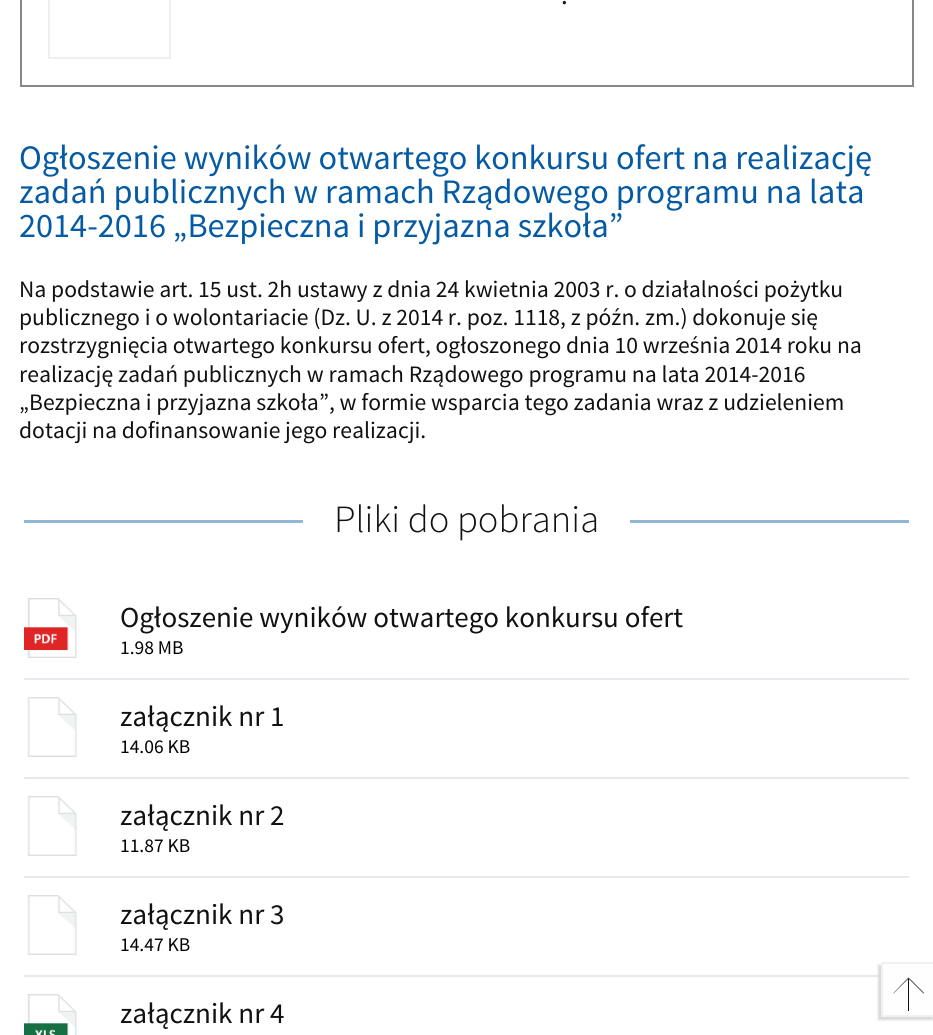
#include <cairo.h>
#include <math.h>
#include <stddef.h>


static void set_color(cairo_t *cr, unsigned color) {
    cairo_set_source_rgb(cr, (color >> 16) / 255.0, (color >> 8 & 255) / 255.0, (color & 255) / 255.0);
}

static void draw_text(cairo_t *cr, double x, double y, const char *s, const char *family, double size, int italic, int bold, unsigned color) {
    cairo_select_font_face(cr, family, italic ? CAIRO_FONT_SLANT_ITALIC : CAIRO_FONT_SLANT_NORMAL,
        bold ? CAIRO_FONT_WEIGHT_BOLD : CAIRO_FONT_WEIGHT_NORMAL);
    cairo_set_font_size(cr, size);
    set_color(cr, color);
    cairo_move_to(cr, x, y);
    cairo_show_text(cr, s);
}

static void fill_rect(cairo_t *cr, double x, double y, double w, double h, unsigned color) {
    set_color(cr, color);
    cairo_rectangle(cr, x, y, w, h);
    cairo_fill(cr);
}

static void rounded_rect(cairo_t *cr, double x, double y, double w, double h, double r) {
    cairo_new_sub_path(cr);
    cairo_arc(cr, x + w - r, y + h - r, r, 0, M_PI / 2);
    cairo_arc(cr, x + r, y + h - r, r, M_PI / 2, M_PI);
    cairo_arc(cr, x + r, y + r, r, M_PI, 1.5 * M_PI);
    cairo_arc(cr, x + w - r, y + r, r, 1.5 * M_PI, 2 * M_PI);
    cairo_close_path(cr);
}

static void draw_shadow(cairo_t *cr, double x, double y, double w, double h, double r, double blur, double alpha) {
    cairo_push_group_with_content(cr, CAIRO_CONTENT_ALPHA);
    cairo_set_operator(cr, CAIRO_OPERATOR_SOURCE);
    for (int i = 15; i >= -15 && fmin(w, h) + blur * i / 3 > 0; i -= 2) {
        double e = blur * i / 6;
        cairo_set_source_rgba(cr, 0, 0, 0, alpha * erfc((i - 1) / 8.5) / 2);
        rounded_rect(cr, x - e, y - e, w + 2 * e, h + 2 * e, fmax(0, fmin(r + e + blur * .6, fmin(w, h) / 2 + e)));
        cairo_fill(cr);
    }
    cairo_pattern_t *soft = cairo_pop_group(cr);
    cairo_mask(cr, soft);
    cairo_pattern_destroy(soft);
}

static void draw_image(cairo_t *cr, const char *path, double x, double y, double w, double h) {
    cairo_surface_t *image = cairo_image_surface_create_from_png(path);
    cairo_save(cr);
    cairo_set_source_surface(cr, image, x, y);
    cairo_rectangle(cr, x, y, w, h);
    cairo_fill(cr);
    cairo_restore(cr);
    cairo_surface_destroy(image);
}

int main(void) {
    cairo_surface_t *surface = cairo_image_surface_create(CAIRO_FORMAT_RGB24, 933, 1035);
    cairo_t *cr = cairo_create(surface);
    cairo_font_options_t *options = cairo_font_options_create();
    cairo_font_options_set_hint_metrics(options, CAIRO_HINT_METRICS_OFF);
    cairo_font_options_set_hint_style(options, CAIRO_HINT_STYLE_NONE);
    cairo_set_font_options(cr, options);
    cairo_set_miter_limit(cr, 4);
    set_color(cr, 0xFFFFFF);
    cairo_paint(cr);
    cairo_rectangle(cr, 21, -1, 892, 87);
    set_color(cr, 0x888888);
    cairo_stroke(cr);
    cairo_rectangle(cr, 49, -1, 121, 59);
    set_color(cr, 0xEFEFEF);
    cairo_stroke(cr);
    draw_text(cr, 561, 4, ".", "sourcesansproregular", 27, 0, 0, 0x111111);
    draw_text(cr, 19, 169, "Ogłoszenie wyników otwartego konkursu ofert na realizację", "sourcesansproregular", 34.3, 0, 0, 0x045AA3);
    draw_text(cr, 19, 203, "zadań publicznych w ramach Rządowego programu na lata", "sourcesansproregular", 34.3, 0, 0, 0x045AA3);
    draw_text(cr, 19, 237, "2014-2016 „Bezpieczna i przyjazna szkoła”", "sourcesansproregular", 34.3, 0, 0, 0x045AA3);
    draw_text(cr, 19, 297, "Na podstawie art. 15 ust. 2h ustawy z dnia 24 kwietnia 2003 r. o działalności pożytku", "sourcesansproregular", 23.6, 0, 0, 0x111111);
    draw_text(cr, 19, 325, "publicznego i o wolontariacie (Dz. U. z 2014 r. poz. 1118, z późn. zm.) dokonuje się", "sourcesansproregular", 23.6, 0, 0, 0x111111);
    draw_text(cr, 19, 353, "rozstrzygnięcia otwartego konkursu ofert, ogłoszonego dnia 10 września 2014 roku na", "sourcesansproregular", 23.6, 0, 0, 0x111111);
    draw_text(cr, 19, 382, "realizację zadań publicznych w ramach Rządowego programu na lata 2014-2016", "sourcesansproregular", 23.6, 0, 0, 0x111111);
    draw_text(cr, 19, 410, "„Bezpieczna i przyjazna szkoła”, w formie wsparcia tego zadania wraz z udzieleniem", "sourcesansproregular", 23.6, 0, 0, 0x111111);
    draw_text(cr, 19, 438, "dotacji na dofinansowanie jego realizacji.", "sourcesansproregular", 23.6, 0, 0, 0x111111);
    fill_rect(cr, 24, 520, 885, 3, 0x91B7D7);
    fill_rect(cr, 303, 520, 327, 3, 0xFFFFFF);
    draw_text(cr, 334, 532, "Pliki do pobrania", "Source Sans Pro Light", 38.5, 0, 0, 0x111111);
    draw_image(cr, "assets/img1.png", 24, 598, 53, 60);
    fill_rect(cr, 24, 678, 885, 2, 0xE7E9F1);
    draw_text(cr, 120, 627, "Ogłoszenie wyników otwartego konkursu ofert", "sourcesansproregular", 29, 0, 0, 0x111111);
    draw_text(cr, 120, 654, "1.98 MB", "sourcesansproregular", 19.5, 0, 0, 0x010101);
    draw_image(cr, "assets/img2.png", 27, 697, 50, 60);
    fill_rect(cr, 24, 777, 885, 2, 0xE7E9F1);
    draw_text(cr, 120, 726, "załącznik nr 1", "sourcesansproregular", 29, 0, 0, 0x111111);
    draw_text(cr, 120, 753, "14.06 KB", "sourcesansproregular", 19.5, 0, 0, 0x010101);
    draw_image(cr, "assets/img2.png", 27, 796, 50, 60);
    fill_rect(cr, 24, 876, 885, 2, 0xE7E9F1);
    draw_text(cr, 120, 825, "załącznik nr 2", "sourcesansproregular", 29, 0, 0, 0x111111);
    draw_text(cr, 120, 852, "11.87 KB", "sourcesansproregular", 19.5, 0, 0, 0x010101);
    draw_image(cr, "assets/img2.png", 27, 895, 50, 60);
    fill_rect(cr, 24, 975, 857, 2, 0xE7E9F1);
    draw_text(cr, 120, 924, "załącznik nr 3", "sourcesansproregular", 29, 0, 0, 0x111111);
    draw_text(cr, 120, 951, "14.47 KB", "sourcesansproregular", 19.5, 0, 0, 0x010101);
    draw_image(cr, "assets/img3.png", 24, 994, 53, 41);
    draw_text(cr, 120, 1023, "załącznik nr 4", "sourcesansproregular", 29, 0, 0, 0x111111);
    set_color(cr, 0xDADADA);
    draw_shadow(cr, 878, 965, 55, 55, 0, 1, 1);
    set_color(cr, 0xFEFEFE);
    cairo_rectangle(cr, 882, 963, 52, 53);
    cairo_fill_preserve(cr);
    set_color(cr, 0xF1F1F1);
    cairo_stroke(cr);
    set_color(cr, 0x111111);
    cairo_new_path(cr);
    cairo_move_to(cr, 908.5, 977.5);
    cairo_line_to(cr, 893.5, 993);
    cairo_line_to(cr, 893.5, 993.5);
    cairo_line_to(cr, 908.5, 978.5);
    cairo_line_to(cr, 923.5, 993.5);
    cairo_line_to(cr, 924, 993);
    cairo_close_path(cr);
    cairo_move_to(cr, 909, 979);
    cairo_line_to(cr, 909, 1011);
    cairo_line_to(cr, 908, 1011);
    cairo_line_to(cr, 908, 979);
    cairo_close_path(cr);
    cairo_fill(cr);
    cairo_surface_write_to_png(surface, "output.png");
    cairo_font_options_destroy(options);
    cairo_destroy(cr);
    cairo_surface_destroy(surface);
    return 0;
}
